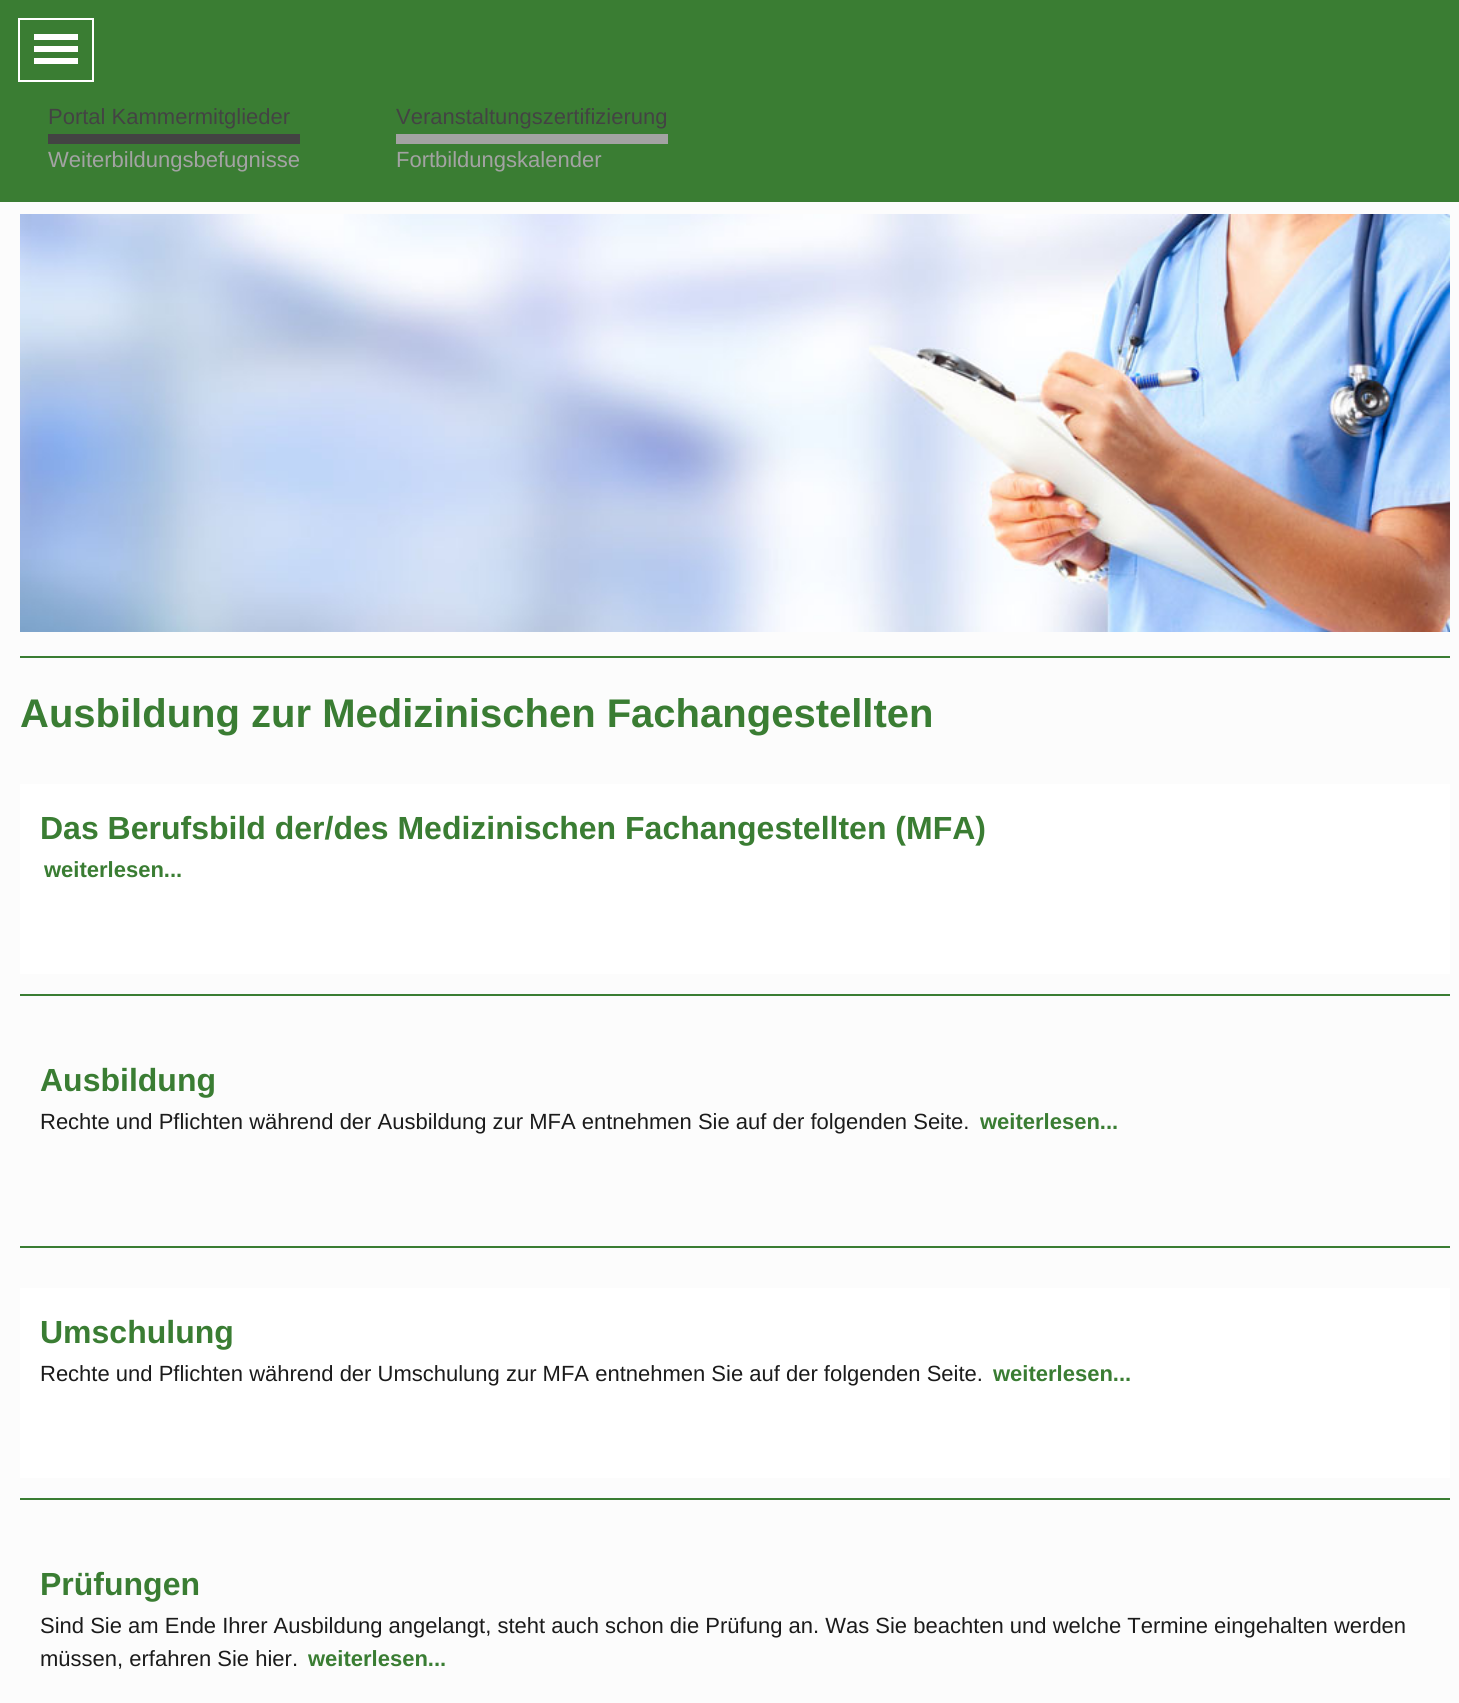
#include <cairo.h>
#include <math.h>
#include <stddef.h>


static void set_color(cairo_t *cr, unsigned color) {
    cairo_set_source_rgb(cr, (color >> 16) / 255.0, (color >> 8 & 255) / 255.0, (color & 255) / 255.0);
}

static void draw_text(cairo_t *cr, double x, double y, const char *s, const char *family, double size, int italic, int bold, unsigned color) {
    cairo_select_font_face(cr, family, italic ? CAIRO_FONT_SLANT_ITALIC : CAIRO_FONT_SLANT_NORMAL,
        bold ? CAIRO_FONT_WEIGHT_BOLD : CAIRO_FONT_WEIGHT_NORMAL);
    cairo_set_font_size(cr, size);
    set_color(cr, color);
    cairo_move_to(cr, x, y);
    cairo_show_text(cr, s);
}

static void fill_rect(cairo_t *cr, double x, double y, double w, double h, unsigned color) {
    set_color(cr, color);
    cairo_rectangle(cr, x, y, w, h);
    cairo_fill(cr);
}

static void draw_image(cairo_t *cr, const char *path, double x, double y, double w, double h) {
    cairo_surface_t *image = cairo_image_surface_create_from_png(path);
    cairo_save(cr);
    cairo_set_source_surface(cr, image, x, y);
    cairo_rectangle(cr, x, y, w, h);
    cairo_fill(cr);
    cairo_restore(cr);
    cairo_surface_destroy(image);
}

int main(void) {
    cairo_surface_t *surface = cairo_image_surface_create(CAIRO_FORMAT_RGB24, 1459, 1703);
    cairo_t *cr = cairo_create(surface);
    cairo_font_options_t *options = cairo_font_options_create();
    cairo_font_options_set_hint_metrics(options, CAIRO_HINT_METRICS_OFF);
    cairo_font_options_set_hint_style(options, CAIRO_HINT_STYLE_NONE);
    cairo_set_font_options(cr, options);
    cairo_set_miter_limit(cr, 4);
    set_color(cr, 0xFCFCFC);
    cairo_paint(cr);
    fill_rect(cr, 0, 0, 1459, 202, 0x3A7D33);
    cairo_rectangle(cr, 19, 19, 74, 62);
    set_color(cr, 0xFFFFFF);
    cairo_stroke(cr);
    fill_rect(cr, 34, 34, 44, 6, 0xFFFFFF);
    fill_rect(cr, 34, 46, 44, 6, 0xFFFFFF);
    fill_rect(cr, 34, 58, 44, 6, 0xFFFFFF);
    draw_text(cr, 48, 124, "Portal Kammermitglieder", "Liberation Sans", 22, 0, 0, 0x434343);
    fill_rect(cr, 48, 134, 252, 10, 0x434343);
    draw_text(cr, 48, 167, "Weiterbildungsbefugnisse", "Liberation Sans", 22, 0, 0, 0xA3A3A3);
    draw_text(cr, 396, 124, "Veranstaltungszertifizierung", "Liberation Sans", 22, 0, 0, 0x434343);
    fill_rect(cr, 396, 134, 272, 10, 0xA3A3A3);
    draw_text(cr, 396, 167, "Fortbildungskalender", "Liberation Sans", 22, 0, 0, 0xA3A3A3);
    draw_image(cr, "assets/img1.png", 20, 214, 1430, 418);
    fill_rect(cr, 20, 656, 1430, 2, 0x3A7D33);
    draw_text(cr, 20, 727, "Ausbildung zur Medizinischen Fachangestellten", "Liberation Sans", 40, 0, 1, 0x3A7D33);
    fill_rect(cr, 20, 784, 1430, 190, 0xFFFFFF);
    draw_text(cr, 40, 839, "Das Berufsbild der/des Medizinischen Fachangestellten (MFA)", "Liberation Sans", 32, 0, 1, 0x3A7D33);
    draw_text(cr, 44, 877, "weiterlesen...", "Liberation Sans", 22, 0, 1, 0x3A7D33);
    fill_rect(cr, 20, 994, 1430, 2, 0x3A7D33);
    draw_text(cr, 40, 1091, "Ausbildung", "Liberation Sans", 32, 0, 1, 0x3A7D33);
    draw_text(cr, 40, 1129, "Rechte und Pflichten während der Ausbildung zur MFA entnehmen Sie auf der folgenden Seite.", "Liberation Sans", 22, 0, 0, 0x1B1B1B);
    draw_text(cr, 980, 1129, "weiterlesen...", "Liberation Sans", 22, 0, 1, 0x3A7D33);
    fill_rect(cr, 20, 1246, 1430, 2, 0x3A7D33);
    fill_rect(cr, 20, 1288, 1430, 190, 0xFFFFFF);
    draw_text(cr, 40, 1343, "Umschulung", "Liberation Sans", 32, 0, 1, 0x3A7D33);
    draw_text(cr, 40, 1381, "Rechte und Pflichten während der Umschulung zur MFA entnehmen Sie auf der folgenden Seite.", "Liberation Sans", 22, 0, 0, 0x1B1B1B);
    draw_text(cr, 993, 1381, "weiterlesen...", "Liberation Sans", 22, 0, 1, 0x3A7D33);
    fill_rect(cr, 20, 1498, 1430, 2, 0x3A7D33);
    draw_text(cr, 40, 1595, "Prüfungen", "Liberation Sans", 32, 0, 1, 0x3A7D33);
    draw_text(cr, 40, 1633, "Sind Sie am Ende Ihrer Ausbildung angelangt, steht auch schon die Prüfung an. Was Sie beachten und welche Termine eingehalten werden", "Liberation Sans", 22, 0, 0, 0x1B1B1B);
    draw_text(cr, 40, 1666, "müssen, erfahren Sie hier.", "Liberation Sans", 22, 0, 0, 0x1B1B1B);
    draw_text(cr, 308, 1666, "weiterlesen...", "Liberation Sans", 22, 0, 1, 0x3A7D33);
    cairo_surface_write_to_png(surface, "output.png");
    cairo_font_options_destroy(options);
    cairo_destroy(cr);
    cairo_surface_destroy(surface);
    return 0;
}
